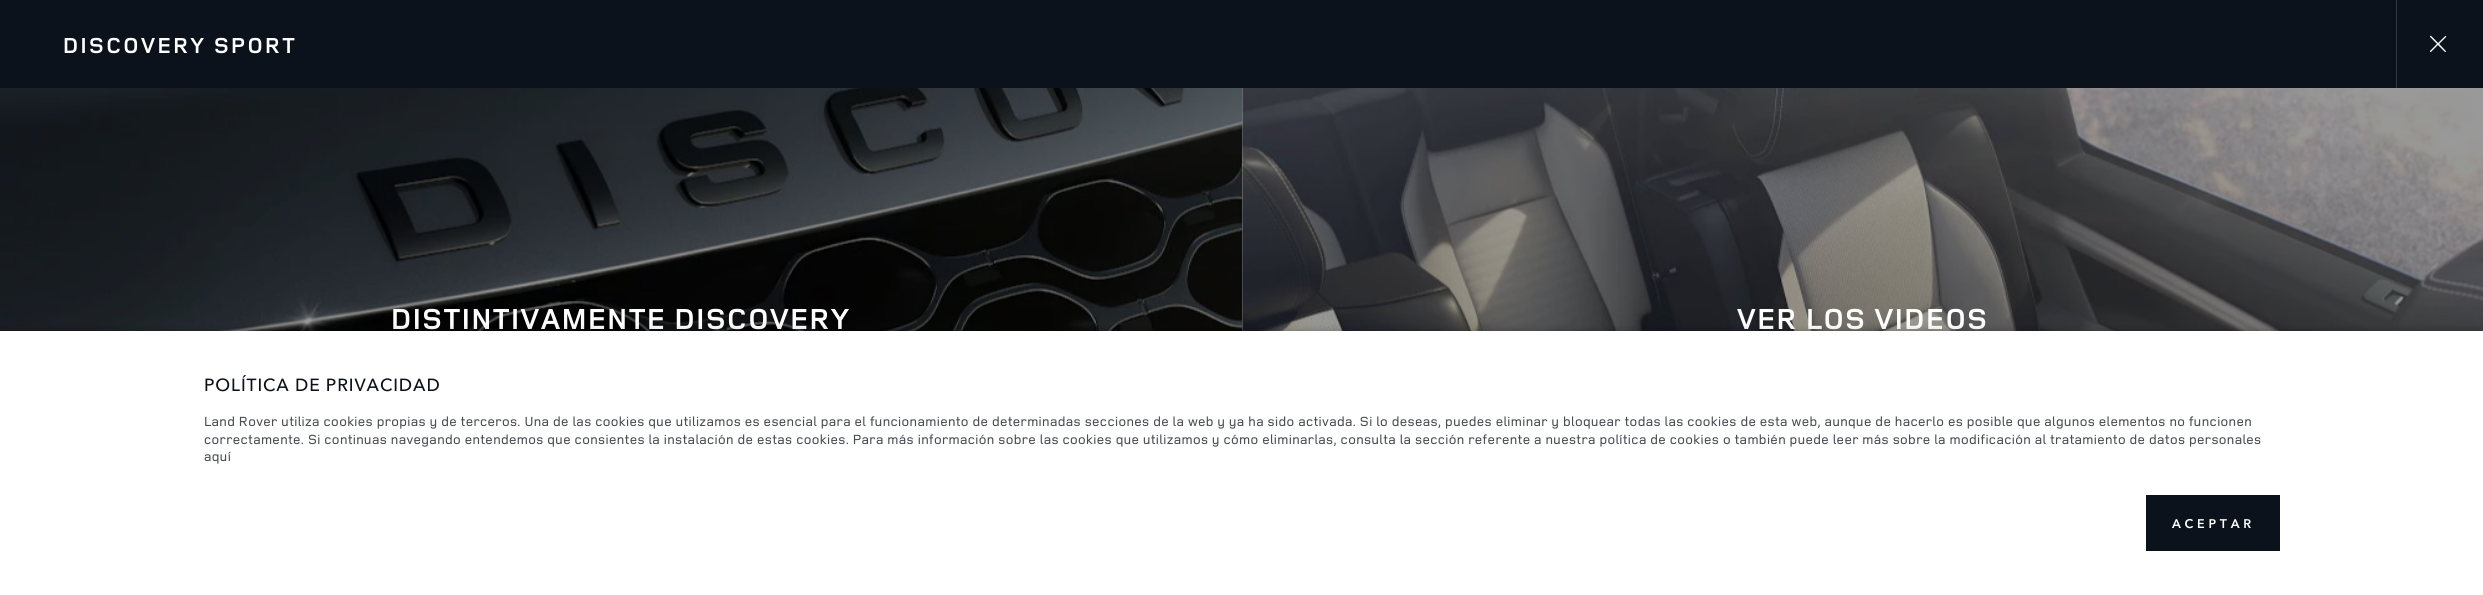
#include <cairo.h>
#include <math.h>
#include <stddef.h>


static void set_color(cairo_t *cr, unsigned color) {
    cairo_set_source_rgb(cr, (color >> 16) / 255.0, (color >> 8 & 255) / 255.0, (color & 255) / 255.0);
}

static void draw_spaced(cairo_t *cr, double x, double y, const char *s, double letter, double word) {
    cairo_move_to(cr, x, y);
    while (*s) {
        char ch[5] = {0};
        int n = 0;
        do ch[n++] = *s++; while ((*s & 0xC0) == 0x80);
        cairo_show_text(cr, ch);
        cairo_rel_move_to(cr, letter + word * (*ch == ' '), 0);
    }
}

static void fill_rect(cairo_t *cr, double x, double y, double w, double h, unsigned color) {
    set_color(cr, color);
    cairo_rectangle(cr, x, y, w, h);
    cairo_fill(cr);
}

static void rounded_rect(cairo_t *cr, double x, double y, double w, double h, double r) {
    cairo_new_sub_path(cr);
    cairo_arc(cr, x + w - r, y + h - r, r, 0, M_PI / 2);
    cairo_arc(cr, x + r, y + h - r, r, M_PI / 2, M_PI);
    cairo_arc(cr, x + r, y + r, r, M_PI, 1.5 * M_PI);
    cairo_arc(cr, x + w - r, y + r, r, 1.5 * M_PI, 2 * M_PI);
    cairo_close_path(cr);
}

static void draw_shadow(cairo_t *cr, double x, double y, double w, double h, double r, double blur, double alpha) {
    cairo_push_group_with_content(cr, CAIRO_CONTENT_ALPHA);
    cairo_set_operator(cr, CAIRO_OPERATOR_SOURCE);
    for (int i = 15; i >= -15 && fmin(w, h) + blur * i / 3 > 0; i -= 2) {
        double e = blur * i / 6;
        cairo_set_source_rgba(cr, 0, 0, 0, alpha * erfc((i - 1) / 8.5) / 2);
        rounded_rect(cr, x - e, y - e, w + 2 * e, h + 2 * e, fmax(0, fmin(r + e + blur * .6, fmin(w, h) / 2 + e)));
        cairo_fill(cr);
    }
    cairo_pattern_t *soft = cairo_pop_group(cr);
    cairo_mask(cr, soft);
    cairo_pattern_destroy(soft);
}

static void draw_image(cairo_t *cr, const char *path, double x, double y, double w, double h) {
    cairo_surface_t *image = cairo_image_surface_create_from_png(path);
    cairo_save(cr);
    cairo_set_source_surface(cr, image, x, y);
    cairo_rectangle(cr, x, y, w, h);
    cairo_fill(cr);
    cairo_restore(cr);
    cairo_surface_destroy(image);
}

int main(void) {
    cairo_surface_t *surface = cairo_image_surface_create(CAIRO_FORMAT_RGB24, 2483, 595);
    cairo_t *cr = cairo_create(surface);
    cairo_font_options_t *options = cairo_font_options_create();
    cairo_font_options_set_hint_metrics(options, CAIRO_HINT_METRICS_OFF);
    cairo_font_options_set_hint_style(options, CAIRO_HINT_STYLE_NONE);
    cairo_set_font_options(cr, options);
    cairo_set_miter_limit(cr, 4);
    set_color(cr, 0xFFFFFF);
    cairo_paint(cr);
    set_color(cr, 0x000000);
    draw_shadow(cr, 0, 1, 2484, 90, 0, 2.5, 0.1);
    set_color(cr, 0x010101);
    draw_shadow(cr, 0, 91, 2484, 55, 0, 2.5, 0.1);
    fill_rect(cr, 0, 0, 2483, 88, 0x0C121C);
    cairo_select_font_face(cr, "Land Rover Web", CAIRO_FONT_SLANT_NORMAL, CAIRO_FONT_WEIGHT_BOLD);
    cairo_set_font_size(cr, 22.5);
    set_color(cr, 0xFFFFFF);
    draw_spaced(cr, 63, 53, "DISCOVERY SPORT", 2.4, 0);
    fill_rect(cr, 2396, 0, 1, 88, 0x30363E);
    draw_image(cr, "assets/img1.png", 2430, 35, 17, 17);
    draw_image(cr, "assets/img2.png", 0, 88, 1243, 243);
    cairo_set_source_rgba(cr, 0, 0, 0, 0.4);
    cairo_rectangle(cr, 0, 88, 1243, 243);
    cairo_fill(cr);
    cairo_set_font_size(cr, 30);
    set_color(cr, 0xFFFFFF);
    draw_spaced(cr, 391, 329, "DISTINTIVAMENTE DISCOVERY", 1.5, 0);
    draw_image(cr, "assets/img3.png", 1242, 88, 1241, 243);
    cairo_set_source_rgba(cr, 0, 0, 0, 0.4);
    cairo_rectangle(cr, 1243, 88, 1240, 243);
    cairo_fill(cr);
    set_color(cr, 0xFFFFFF);
    draw_spaced(cr, 1737, 329, "VER LOS VIDEOS", 1.5, 0);
    set_color(cr, 0x010101);
    draw_shadow(cr, 0, 331, 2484, 264, 0, 4, 0.25);
    fill_rect(cr, 0, 331, 2483, 264, 0xFFFFFF);
    cairo_select_font_face(cr, "Avenir Next Medium", CAIRO_FONT_SLANT_NORMAL, CAIRO_FONT_WEIGHT_NORMAL);
    cairo_set_font_size(cr, 17.5);
    set_color(cr, 0x0C121C);
    draw_spaced(cr, 204, 391, "POLÍTICA DE PRIVACIDAD", 0.9, 0);
    cairo_select_font_face(cr, "Land Rover Web Medium", CAIRO_FONT_SLANT_NORMAL, CAIRO_FONT_WEIGHT_NORMAL);
    cairo_set_font_size(cr, 13.75);
    set_color(cr, 0x4A4F54);
    draw_spaced(cr, 204, 426, "Land Rover utiliza cookies propias y de terceros. Una de las cookies que utilizamos es esencial para el funcionamiento de determinadas secciones de la web y ya ha sido activada. Si lo deseas, puedes eliminar y bloquear todas las cookies de esta web, aunque de hacerlo es posible que algunos elementos no funcionen", 0.38, 0);
    draw_spaced(cr, 204, 444, "correctamente. Si continuas navegando entendemos que consientes la instalación de estas cookies. Para más información sobre las cookies que utilizamos y cómo eliminarlas, consulta la sección referente a nuestra política de cookies o también puede leer más sobre la modificación al tratamiento de datos personales", 0.38, 0);
    draw_spaced(cr, 204, 461, "aquí", 0.38, 0);
    fill_rect(cr, 2146, 495, 134, 56, 0x0C121C);
    cairo_select_font_face(cr, "Avenir Next SemiBold", CAIRO_FONT_SLANT_NORMAL, CAIRO_FONT_WEIGHT_NORMAL);
    cairo_set_font_size(cr, 12.5);
    set_color(cr, 0xFFFFFF);
    draw_spaced(cr, 2172, 528, "ACEPTAR", 3.75, 0);
    cairo_surface_write_to_png(surface, "output.png");
    cairo_font_options_destroy(options);
    cairo_destroy(cr);
    cairo_surface_destroy(surface);
    return 0;
}
